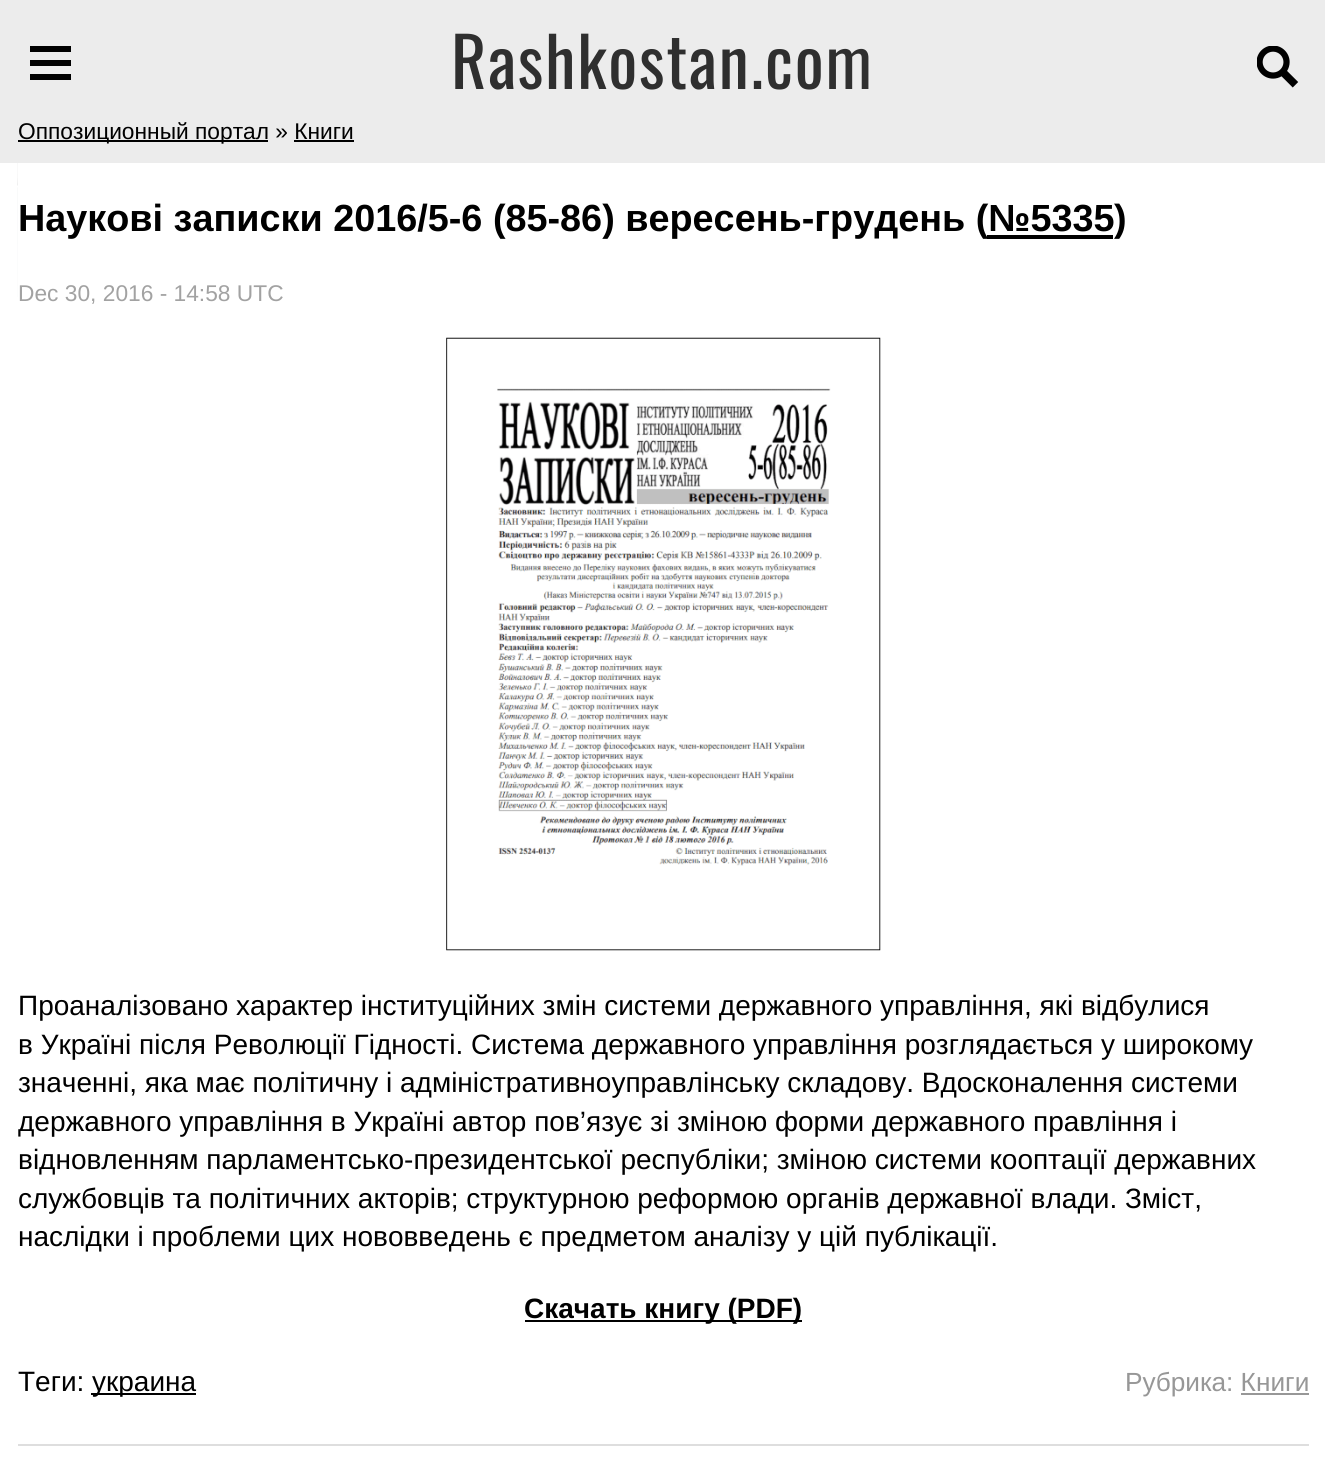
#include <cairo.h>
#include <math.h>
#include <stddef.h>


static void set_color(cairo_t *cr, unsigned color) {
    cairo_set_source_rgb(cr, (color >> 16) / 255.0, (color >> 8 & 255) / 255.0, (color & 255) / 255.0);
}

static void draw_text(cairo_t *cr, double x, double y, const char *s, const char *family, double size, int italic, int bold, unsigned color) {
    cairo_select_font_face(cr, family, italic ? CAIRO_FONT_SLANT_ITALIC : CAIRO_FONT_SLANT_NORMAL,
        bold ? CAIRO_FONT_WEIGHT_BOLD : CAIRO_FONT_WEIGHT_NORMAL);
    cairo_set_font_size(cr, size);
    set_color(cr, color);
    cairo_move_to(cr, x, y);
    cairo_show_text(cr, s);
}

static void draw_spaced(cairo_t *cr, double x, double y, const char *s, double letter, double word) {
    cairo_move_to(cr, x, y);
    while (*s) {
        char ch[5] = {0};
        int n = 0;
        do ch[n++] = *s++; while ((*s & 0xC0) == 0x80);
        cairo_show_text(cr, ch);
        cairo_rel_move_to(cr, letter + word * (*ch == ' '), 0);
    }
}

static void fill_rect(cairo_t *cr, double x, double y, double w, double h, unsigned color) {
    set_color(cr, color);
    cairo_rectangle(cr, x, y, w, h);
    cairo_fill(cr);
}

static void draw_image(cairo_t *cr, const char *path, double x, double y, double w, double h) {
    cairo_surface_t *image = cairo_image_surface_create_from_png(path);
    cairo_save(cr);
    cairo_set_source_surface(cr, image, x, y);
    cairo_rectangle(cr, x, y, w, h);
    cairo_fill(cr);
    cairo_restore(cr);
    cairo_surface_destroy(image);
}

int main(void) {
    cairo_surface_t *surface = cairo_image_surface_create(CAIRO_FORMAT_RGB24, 1325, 1470);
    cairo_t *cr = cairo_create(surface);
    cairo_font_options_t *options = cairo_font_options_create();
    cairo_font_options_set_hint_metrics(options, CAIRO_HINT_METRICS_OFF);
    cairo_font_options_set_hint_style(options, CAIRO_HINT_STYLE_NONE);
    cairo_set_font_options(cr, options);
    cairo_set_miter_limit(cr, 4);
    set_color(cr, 0xFFFFFF);
    cairo_paint(cr);
    fill_rect(cr, 0, 0, 1325, 163, 0xECECEC);
    fill_rect(cr, 30, 46, 41, 6, 0x000000);
    fill_rect(cr, 30, 60, 41, 6, 0x000000);
    fill_rect(cr, 30, 74, 41, 6, 0x000000);
    cairo_select_font_face(cr, "Oswald", CAIRO_FONT_SLANT_NORMAL, CAIRO_FONT_WEIGHT_NORMAL);
    cairo_set_font_size(cr, 68.25);
    set_color(cr, 0x2F2F2F);
    draw_spaced(cr, 451, 89, "Rashkostan.com", 1.75, 0);
    draw_image(cr, "assets/img1.png", 1257, 46, 42, 42);
    draw_image(cr, "assets/img2.png", 17, 163, 1, 134);
    fill_rect(cr, 18, 140, 250, 2, 0x000000);
    draw_text(cr, 18, 139, "Оппозиционный портал » Книги", "Liberation Sans", 22.75, 0, 0, 0x000000);
    fill_rect(cr, 294, 140, 60, 2, 0x000000);
    draw_text(cr, 18, 231, "Науковi записки 2016/5-6 (85-86) вересень-грудень (№5335", "Liberation Sans", 37.8, 0, 1, 0x000000);
    draw_text(cr, 1114, 231, ")", "Liberation Sans", 37.8, 0, 1, 0x000000);
    fill_rect(cr, 987, 235, 126, 4, 0x000000);
    fill_rect(cr, 18, 1444, 1291, 2, 0xDEDEDE);
    draw_text(cr, 18, 301, "Dec 30, 2016 - 14:58 UTC", "Liberation Sans", 22.75, 0, 0, 0xA2A2A2);
    draw_image(cr, "assets/img3.png", 446, 337, 435, 614);
    draw_text(cr, 18, 1015, "Проаналізовано характер інституційних змін системи державного управління, які відбулися", "Liberation Sans", 28, 0, 0, 0x000000);
    draw_text(cr, 18, 1054, "в Україні після Революції Гідності. Система державного управління розглядається у широкому", "Liberation Sans", 28, 0, 0, 0x000000);
    draw_text(cr, 18, 1092, "значенні, яка має політичну і адміністративноуправлінську складову. Вдосконалення системи", "Liberation Sans", 28, 0, 0, 0x000000);
    draw_text(cr, 18, 1131, "державного управління в Україні автор пов’язує зі зміною форми державного правління і", "Liberation Sans", 28, 0, 0, 0x000000);
    draw_text(cr, 18, 1169, "відновленням парламентсько-президентської республіки; зміною системи кооптації державних", "Liberation Sans", 28, 0, 0, 0x000000);
    draw_text(cr, 18, 1208, "службовців та політичних акторів; структурною реформою органів державної влади. Зміст,", "Liberation Sans", 28, 0, 0, 0x000000);
    draw_text(cr, 18, 1246, "наслідки і проблеми цих нововведень є предметом аналізу у цій публікації.", "Liberation Sans", 28, 0, 0, 0x000000);
    fill_rect(cr, 525, 1320, 277, 2, 0x000000);
    draw_text(cr, 524, 1318, "Скачать книгу (PDF)", "Liberation Sans", 28, 0, 1, 0x000000);
    draw_text(cr, 18, 1391, "Теги:", "Liberation Sans", 28, 0, 0, 0x000000);
    fill_rect(cr, 91, 1393, 105, 2, 0x000000);
    draw_text(cr, 92, 1391, "украина", "Liberation Sans", 28, 0, 0, 0x000000);
    draw_text(cr, 1125, 1391, "Рубрика: Книги", "Liberation Sans", 26.25, 0, 0, 0x979797);
    fill_rect(cr, 1241, 1393, 68, 2, 0x979797);
    cairo_surface_write_to_png(surface, "output.png");
    cairo_font_options_destroy(options);
    cairo_destroy(cr);
    cairo_surface_destroy(surface);
    return 0;
}
